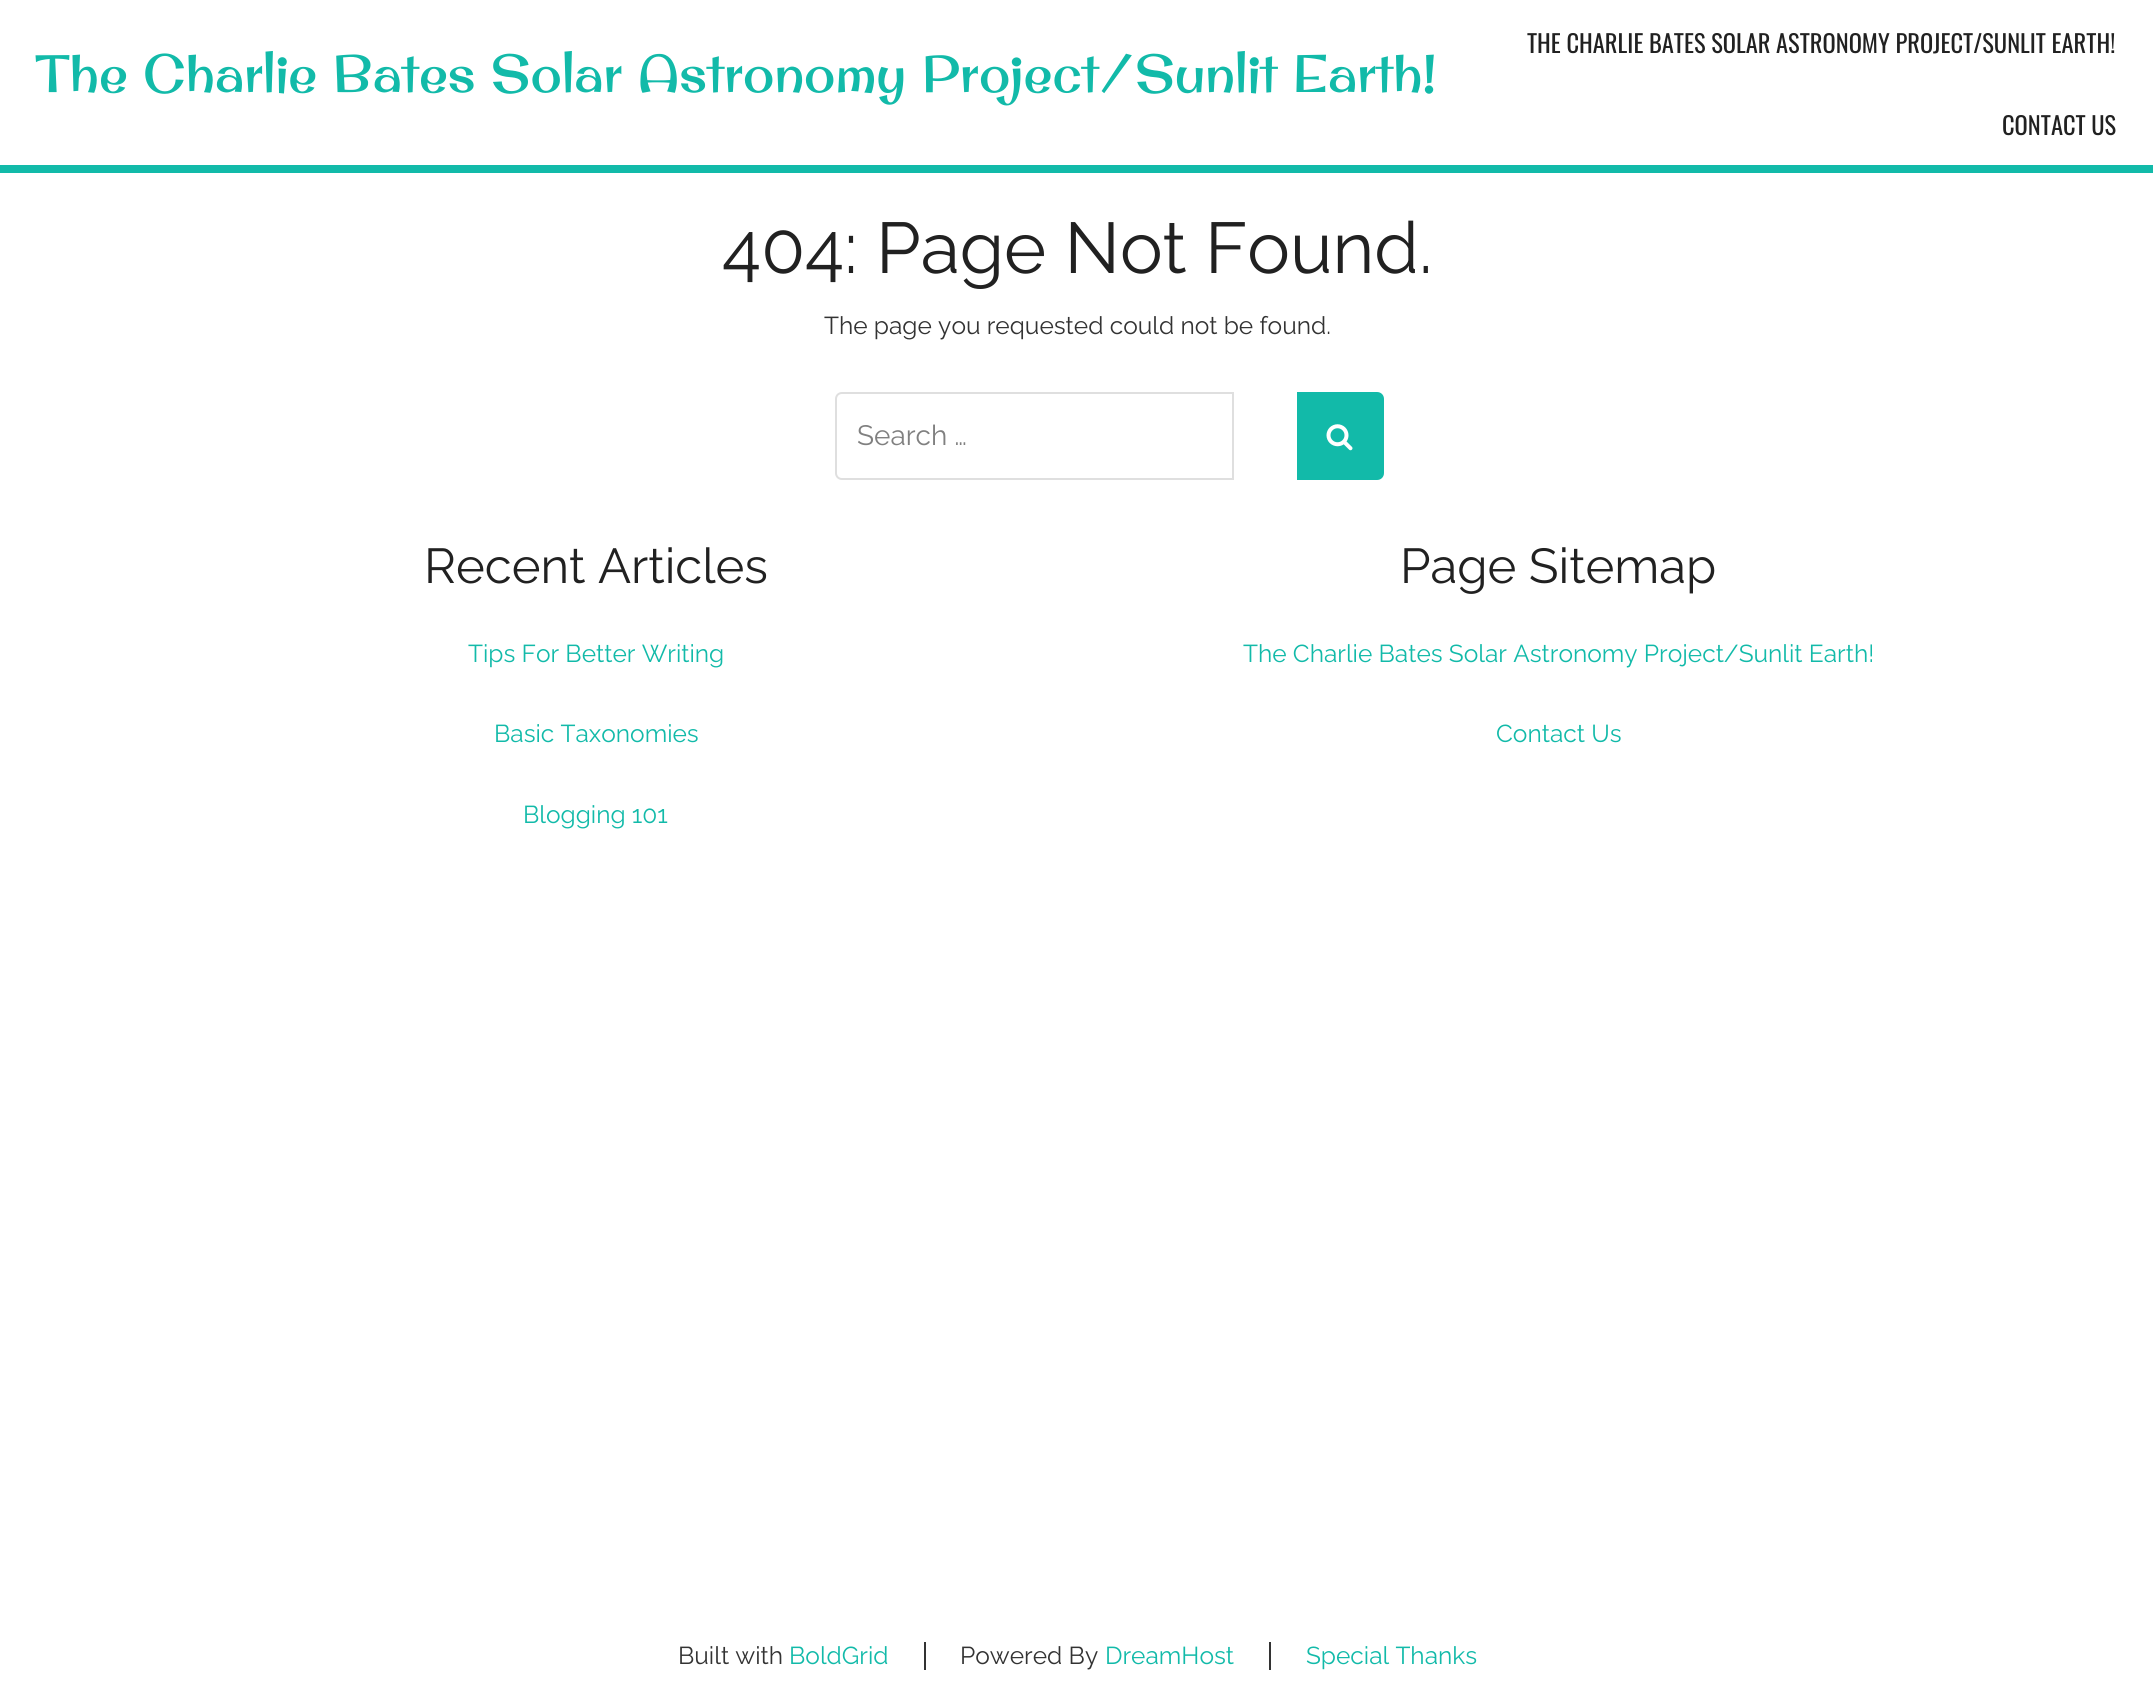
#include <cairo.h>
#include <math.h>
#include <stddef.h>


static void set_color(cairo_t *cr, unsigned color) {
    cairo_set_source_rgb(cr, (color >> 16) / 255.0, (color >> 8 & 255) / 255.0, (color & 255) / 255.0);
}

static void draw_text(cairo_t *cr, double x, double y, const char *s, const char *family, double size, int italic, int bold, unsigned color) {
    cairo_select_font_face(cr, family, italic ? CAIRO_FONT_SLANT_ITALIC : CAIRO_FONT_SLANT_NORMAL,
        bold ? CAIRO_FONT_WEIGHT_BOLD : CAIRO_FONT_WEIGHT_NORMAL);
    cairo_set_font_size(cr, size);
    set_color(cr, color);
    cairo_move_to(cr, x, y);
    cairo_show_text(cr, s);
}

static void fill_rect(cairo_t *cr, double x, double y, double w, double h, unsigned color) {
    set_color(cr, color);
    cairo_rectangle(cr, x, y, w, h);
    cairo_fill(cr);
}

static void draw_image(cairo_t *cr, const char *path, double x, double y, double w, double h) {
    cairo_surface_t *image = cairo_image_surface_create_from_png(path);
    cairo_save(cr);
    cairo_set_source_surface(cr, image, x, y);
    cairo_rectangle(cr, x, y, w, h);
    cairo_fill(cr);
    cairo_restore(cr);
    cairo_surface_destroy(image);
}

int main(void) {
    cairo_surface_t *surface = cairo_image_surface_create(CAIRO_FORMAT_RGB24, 2153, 1700);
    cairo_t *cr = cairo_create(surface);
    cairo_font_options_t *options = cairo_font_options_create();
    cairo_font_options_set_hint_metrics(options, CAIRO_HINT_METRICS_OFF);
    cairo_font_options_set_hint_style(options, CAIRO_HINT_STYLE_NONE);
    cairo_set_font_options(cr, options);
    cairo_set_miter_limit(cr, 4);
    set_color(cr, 0xFFFFFF);
    cairo_paint(cr);
    fill_rect(cr, 0, 165, 2153, 8, 0x12BAA9);
    draw_text(cr, 35, 92, "The Charlie Bates Solar Astronomy Project/Sunlit Earth!", "Original Surfer", 52.5, 0, 0, 0x12BAA9);
    draw_text(cr, 1527, 53, "THE CHARLIE BATES SOLAR ASTRONOMY PROJECT/SUNLIT EARTH!", "Oswald", 24.5, 0, 0, 0x212121);
    draw_text(cr, 2002, 135, "CONTACT US", "Oswald", 24.5, 0, 0, 0x212121);
    draw_text(cr, 722, 273, "404: Page Not Found.", "Raleway", 71.75, 0, 0, 0x212121);
    draw_text(cr, 824, 334, "The page you requested could not be found.", "Raleway", 24.5, 0, 0, 0x333333);
    cairo_new_path(cr);
    cairo_move_to(cr, 842, 393);
    cairo_line_to(cr, 1233, 393);
    cairo_line_to(cr, 1233, 479);
    cairo_line_to(cr, 842, 479);
    cairo_curve_to(cr, 838.5, 479, 836, 476.5, 836, 473);
    cairo_line_to(cr, 836, 399);
    cairo_curve_to(cr, 836, 395.5, 838.5, 393, 842, 393);
    cairo_close_path(cr);
    set_color(cr, 0xDFDFDF);
    cairo_stroke(cr);
    draw_text(cr, 857, 445, "Search …", "Raleway", 28, 0, 0, 0x808080);
    set_color(cr, 0x12BAA9);
    cairo_new_path(cr);
    cairo_move_to(cr, 1297, 392);
    cairo_line_to(cr, 1377, 392);
    cairo_curve_to(cr, 1381, 392, 1384, 395, 1384, 399);
    cairo_line_to(cr, 1384, 473);
    cairo_curve_to(cr, 1384, 477, 1381, 480, 1377, 480);
    cairo_line_to(cr, 1297, 480);
    cairo_close_path(cr);
    cairo_fill(cr);
    draw_image(cr, "assets/img1.png", 1326, 424, 27, 27);
    draw_text(cr, 424, 583, "Recent Articles", "Raleway", 49, 0, 0, 0x212121);
    draw_text(cr, 468, 662, "Tips For Better Writing", "Raleway", 24.5, 0, 0, 0x12BAA9);
    draw_text(cr, 494, 742, "Basic Taxonomies", "Raleway", 24.5, 0, 0, 0x12BAA9);
    draw_text(cr, 523, 823, "Blogging 101", "Raleway", 24.5, 0, 0, 0x12BAA9);
    draw_text(cr, 1400, 583, "Page Sitemap", "Raleway", 49, 0, 0, 0x212121);
    draw_text(cr, 1243, 662, "The Charlie Bates Solar Astronomy Project/Sunlit Earth!", "Raleway", 24.5, 0, 0, 0x12BAA9);
    draw_text(cr, 1496, 742, "Contact Us", "Raleway", 24.5, 0, 0, 0x12BAA9);
    draw_text(cr, 678, 1664, "Built with", "Raleway", 24.5, 0, 0, 0x333333);
    draw_text(cr, 789, 1664, "BoldGrid", "Raleway", 24.5, 0, 0, 0x12BAA9);
    fill_rect(cr, 924, 1642, 2, 28, 0x333333);
    draw_text(cr, 960, 1664, "Powered By", "Raleway", 24.5, 0, 0, 0x333333);
    draw_text(cr, 1105, 1664, "DreamHost", "Raleway", 24.5, 0, 0, 0x12BAA9);
    fill_rect(cr, 1269, 1642, 2, 28, 0x333333);
    draw_text(cr, 1306, 1664, "Special Thanks", "Raleway", 24.5, 0, 0, 0x12BAA9);
    cairo_surface_write_to_png(surface, "output.png");
    cairo_font_options_destroy(options);
    cairo_destroy(cr);
    cairo_surface_destroy(surface);
    return 0;
}
